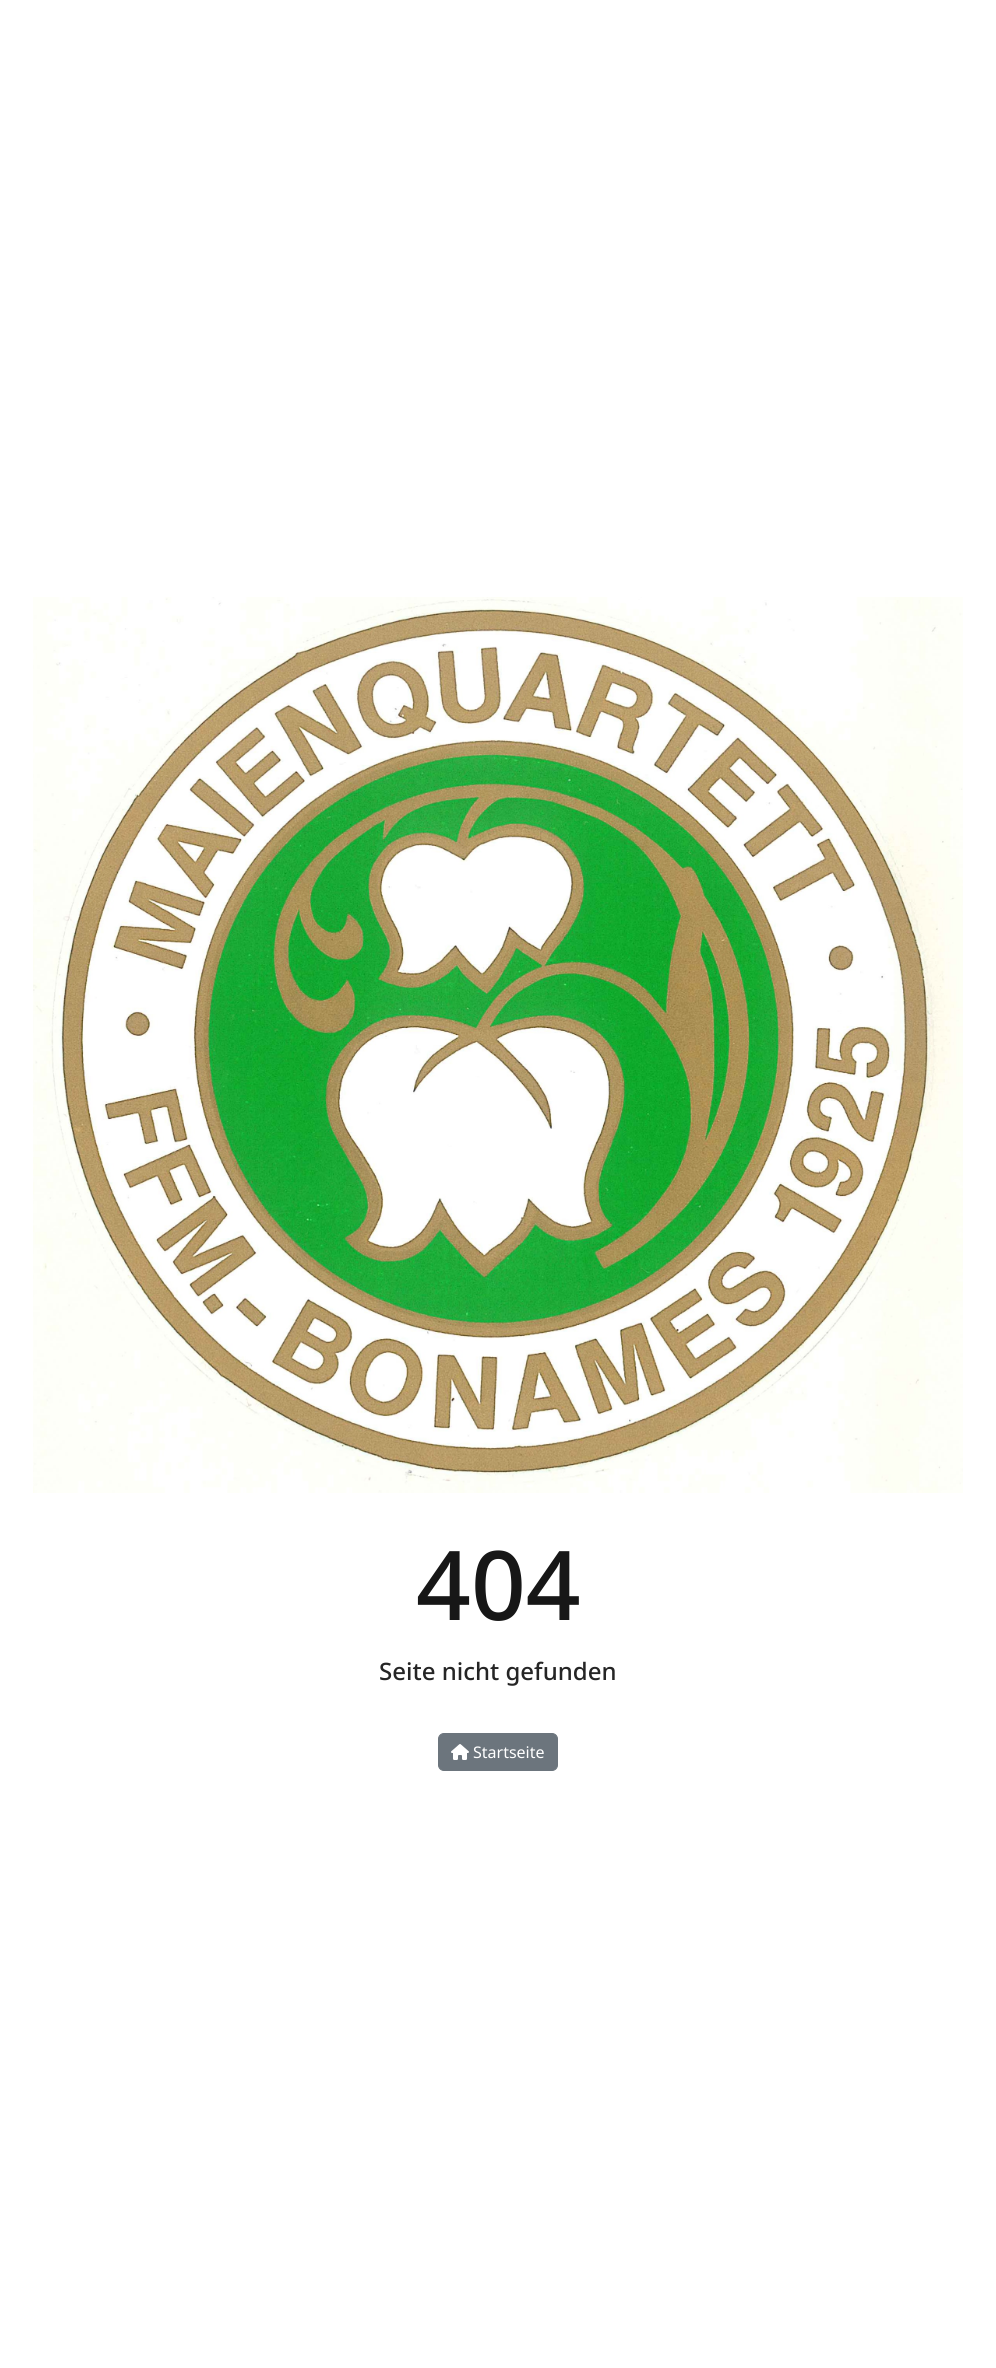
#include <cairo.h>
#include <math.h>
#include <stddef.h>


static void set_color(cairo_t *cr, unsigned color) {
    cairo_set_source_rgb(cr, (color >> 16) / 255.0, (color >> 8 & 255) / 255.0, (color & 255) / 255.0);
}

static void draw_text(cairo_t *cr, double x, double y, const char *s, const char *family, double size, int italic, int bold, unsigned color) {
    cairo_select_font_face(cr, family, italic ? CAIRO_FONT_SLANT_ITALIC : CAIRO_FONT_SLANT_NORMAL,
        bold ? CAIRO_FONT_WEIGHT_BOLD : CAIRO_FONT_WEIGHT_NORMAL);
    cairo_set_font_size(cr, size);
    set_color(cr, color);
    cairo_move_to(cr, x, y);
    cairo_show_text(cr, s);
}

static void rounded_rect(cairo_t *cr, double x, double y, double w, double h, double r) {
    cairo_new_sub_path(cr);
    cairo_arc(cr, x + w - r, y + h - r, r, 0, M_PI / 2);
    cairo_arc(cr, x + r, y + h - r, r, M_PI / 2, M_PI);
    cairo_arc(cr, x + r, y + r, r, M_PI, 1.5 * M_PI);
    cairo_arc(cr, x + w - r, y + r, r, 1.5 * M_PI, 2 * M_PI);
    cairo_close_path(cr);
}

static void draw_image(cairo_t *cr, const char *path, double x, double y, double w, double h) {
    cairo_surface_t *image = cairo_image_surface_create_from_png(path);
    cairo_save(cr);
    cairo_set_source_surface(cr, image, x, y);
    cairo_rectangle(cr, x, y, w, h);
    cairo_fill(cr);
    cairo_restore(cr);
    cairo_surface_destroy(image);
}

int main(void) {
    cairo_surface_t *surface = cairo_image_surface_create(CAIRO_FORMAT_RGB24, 996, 2368);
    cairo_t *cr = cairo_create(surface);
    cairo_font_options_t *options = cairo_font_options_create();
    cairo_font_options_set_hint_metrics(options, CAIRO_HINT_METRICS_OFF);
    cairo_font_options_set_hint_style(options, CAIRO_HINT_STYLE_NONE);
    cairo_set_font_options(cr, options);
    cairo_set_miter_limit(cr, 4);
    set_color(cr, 0xFFFFFF);
    cairo_paint(cr);
    draw_image(cr, "assets/img1.png", 33, 597, 930, 896);
    draw_text(cr, 416, 1620, "404", "Noto Sans Medium", 96, 0, 0, 0x171717);
    draw_text(cr, 379, 1680, "Seite nicht gefunden", "Noto Sans Medium", 24, 0, 0, 0x252525);
    set_color(cr, 0x6C757D);
    rounded_rect(cr, 438.5, 1733.5, 119, 37, 5.5);
    cairo_fill_preserve(cr);
    cairo_set_line_width(cr, 1);
    cairo_stroke(cr);
    draw_image(cr, "assets/img2.png", 451, 1744, 18, 16);
    draw_text(cr, 473, 1758, "Startseite", "Noto Sans", 16, 0, 0, 0xFFFFFF);
    cairo_surface_write_to_png(surface, "output.png");
    cairo_font_options_destroy(options);
    cairo_destroy(cr);
    cairo_surface_destroy(surface);
    return 0;
}
